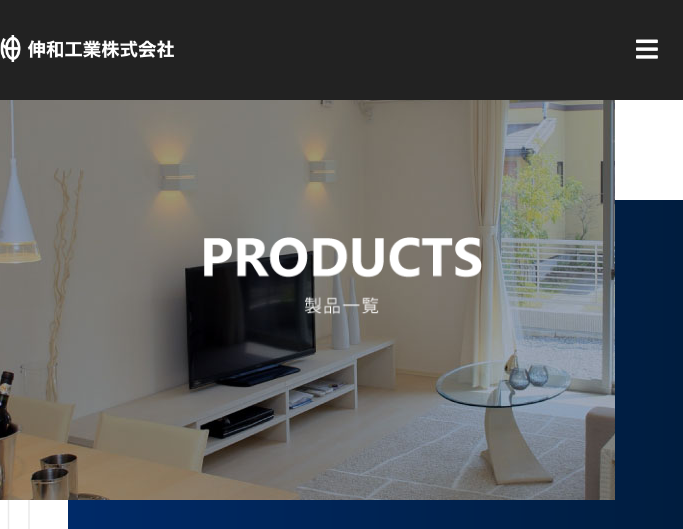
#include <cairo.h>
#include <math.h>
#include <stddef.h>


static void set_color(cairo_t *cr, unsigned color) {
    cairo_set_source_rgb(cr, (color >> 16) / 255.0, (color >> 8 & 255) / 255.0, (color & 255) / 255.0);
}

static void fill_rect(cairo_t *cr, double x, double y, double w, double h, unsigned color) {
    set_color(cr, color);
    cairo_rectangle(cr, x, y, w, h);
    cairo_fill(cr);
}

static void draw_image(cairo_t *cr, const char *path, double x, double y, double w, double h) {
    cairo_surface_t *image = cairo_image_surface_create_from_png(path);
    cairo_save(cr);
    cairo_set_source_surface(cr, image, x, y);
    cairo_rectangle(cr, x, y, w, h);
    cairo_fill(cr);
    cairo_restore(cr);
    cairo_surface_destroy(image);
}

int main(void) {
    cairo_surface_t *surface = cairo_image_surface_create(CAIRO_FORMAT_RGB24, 683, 529);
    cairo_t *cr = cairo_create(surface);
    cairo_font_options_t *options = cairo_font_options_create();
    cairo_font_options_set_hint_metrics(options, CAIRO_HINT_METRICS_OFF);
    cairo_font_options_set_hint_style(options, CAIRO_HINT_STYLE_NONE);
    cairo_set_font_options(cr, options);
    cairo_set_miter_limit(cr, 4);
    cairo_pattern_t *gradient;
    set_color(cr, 0xFFFFFF);
    cairo_paint(cr);
    fill_rect(cr, 0, 0, 683, 100, 0x222222);
    draw_image(cr, "assets/img1.png", 0, 35, 174, 27);
    draw_image(cr, "assets/img2.png", 636, 39, 22, 20);
    gradient = cairo_pattern_create_linear(68, 375, 683, 375);
    cairo_pattern_add_color_stop_rgba(gradient, 0, 0, 0.165, 0.408, 1);
    cairo_pattern_add_color_stop_rgba(gradient, 1, 0, 0.114, 0.247, 1);
    cairo_set_source(cr, gradient);
    cairo_pattern_destroy(gradient);
    cairo_rectangle(cr, 68, 200, 615, 329);
    cairo_fill(cr);
    draw_image(cr, "assets/img3.png", 0, 100, 615, 400);
    draw_image(cr, "assets/img4.png", 204, 237, 278, 78);
    draw_image(cr, "assets/img5.png", 7, 500, 23, 29);
    cairo_surface_write_to_png(surface, "output.png");
    cairo_font_options_destroy(options);
    cairo_destroy(cr);
    cairo_surface_destroy(surface);
    return 0;
}
